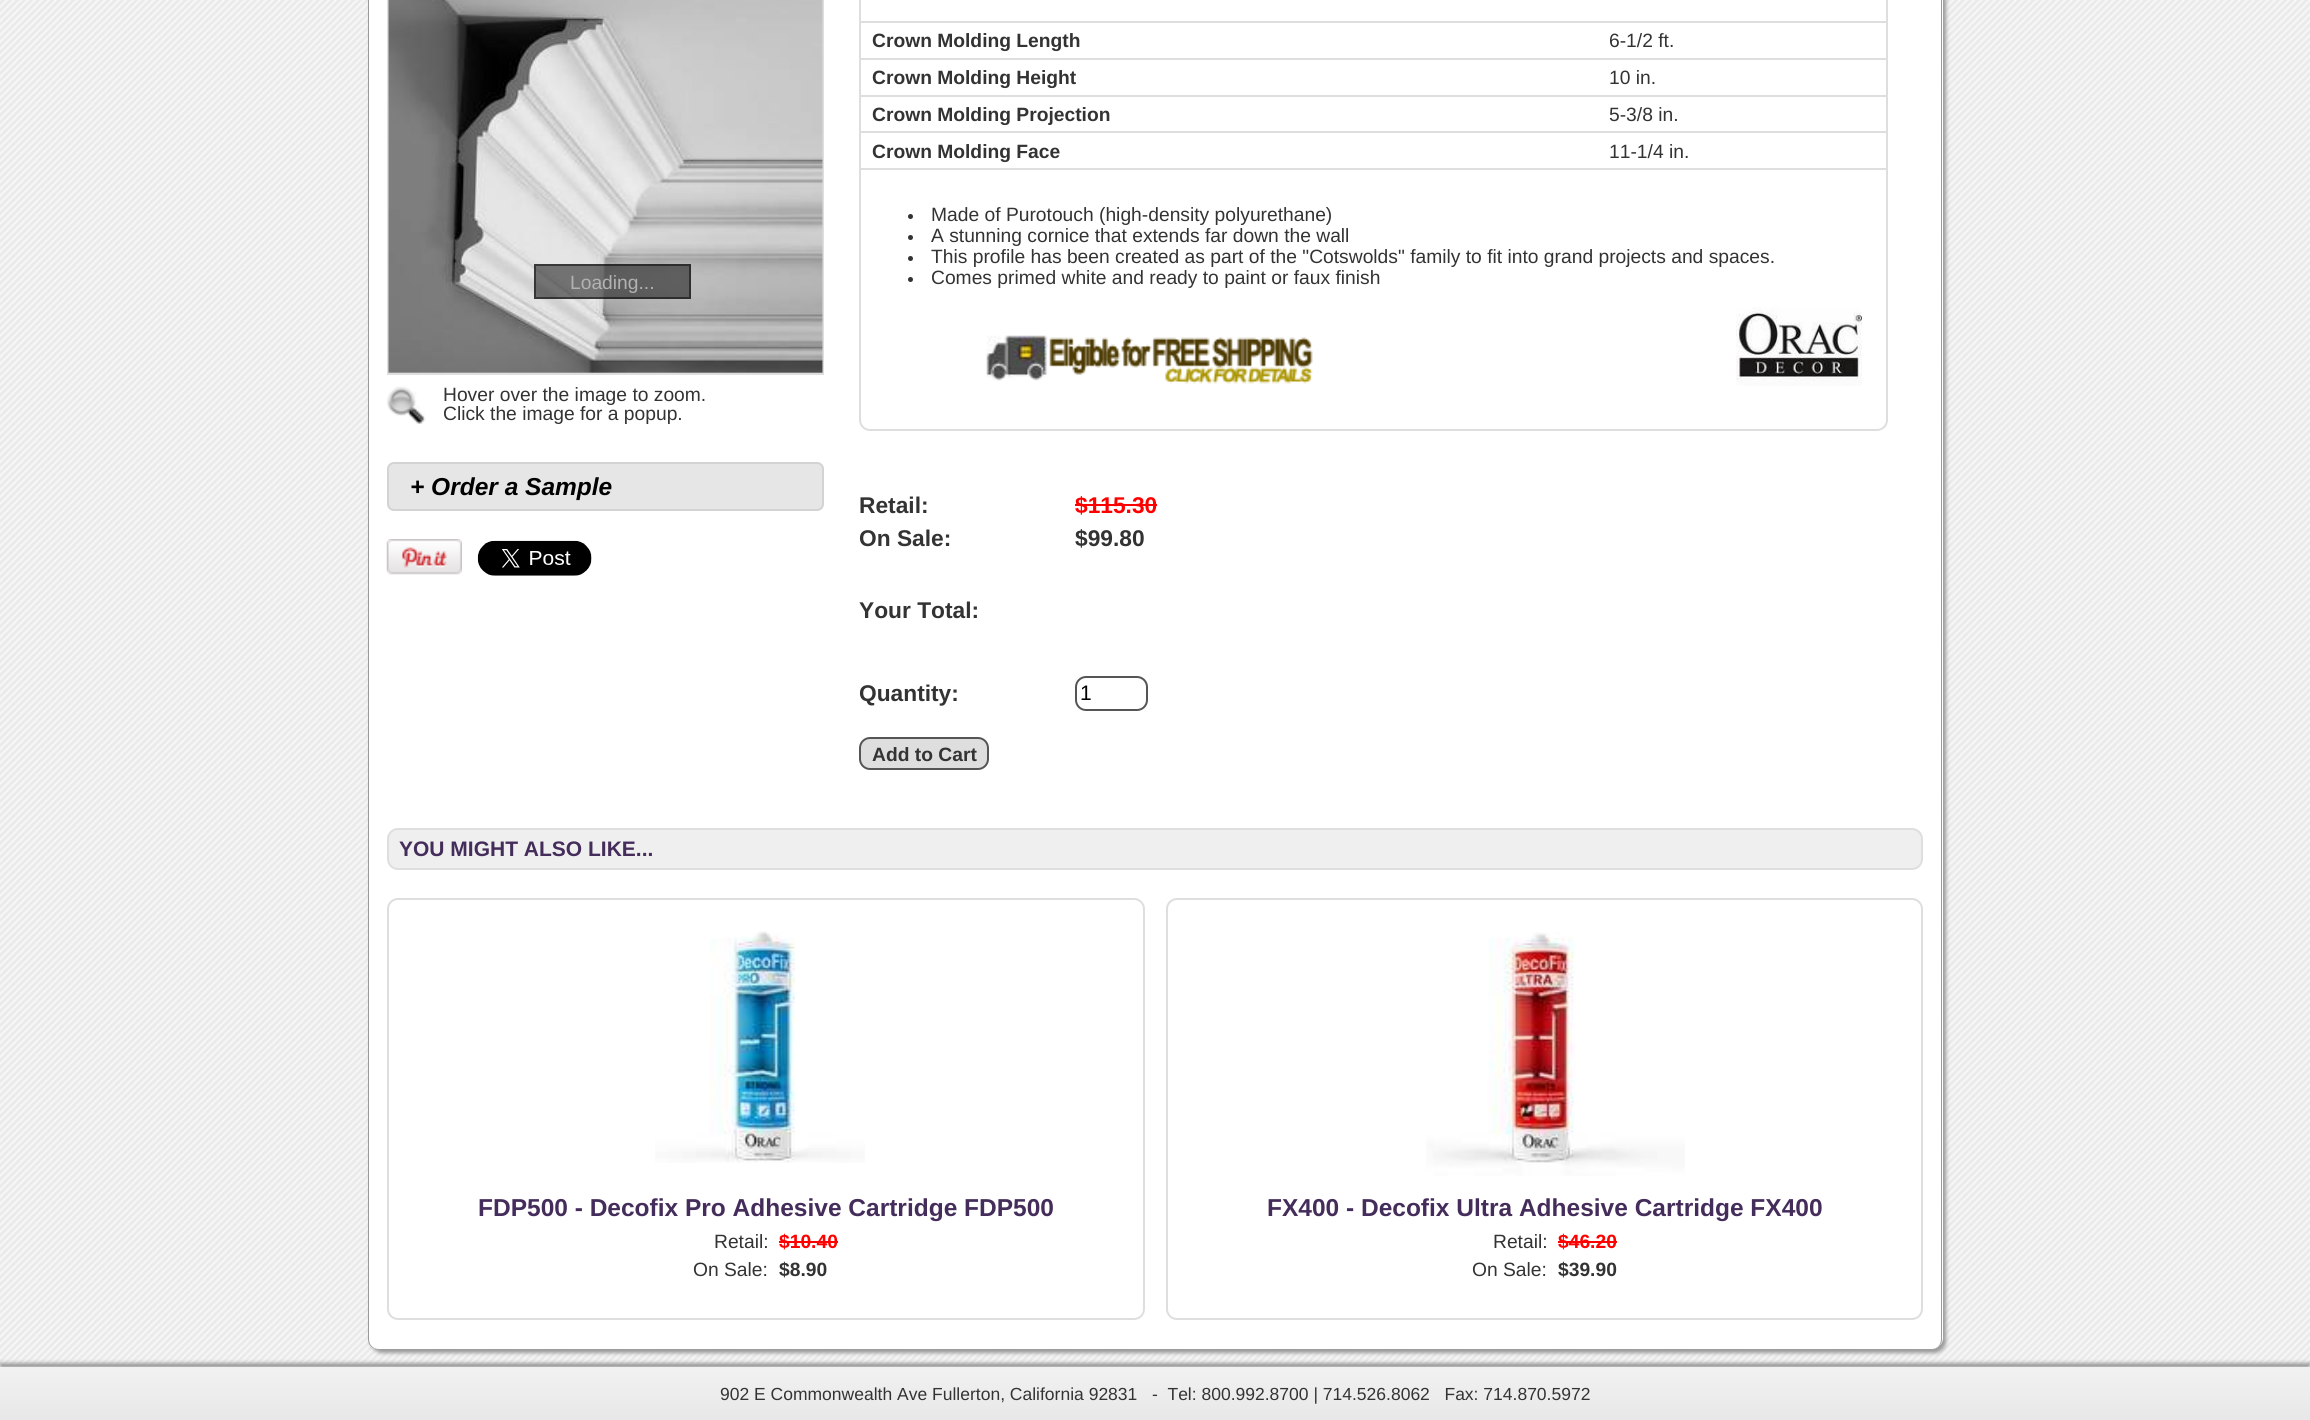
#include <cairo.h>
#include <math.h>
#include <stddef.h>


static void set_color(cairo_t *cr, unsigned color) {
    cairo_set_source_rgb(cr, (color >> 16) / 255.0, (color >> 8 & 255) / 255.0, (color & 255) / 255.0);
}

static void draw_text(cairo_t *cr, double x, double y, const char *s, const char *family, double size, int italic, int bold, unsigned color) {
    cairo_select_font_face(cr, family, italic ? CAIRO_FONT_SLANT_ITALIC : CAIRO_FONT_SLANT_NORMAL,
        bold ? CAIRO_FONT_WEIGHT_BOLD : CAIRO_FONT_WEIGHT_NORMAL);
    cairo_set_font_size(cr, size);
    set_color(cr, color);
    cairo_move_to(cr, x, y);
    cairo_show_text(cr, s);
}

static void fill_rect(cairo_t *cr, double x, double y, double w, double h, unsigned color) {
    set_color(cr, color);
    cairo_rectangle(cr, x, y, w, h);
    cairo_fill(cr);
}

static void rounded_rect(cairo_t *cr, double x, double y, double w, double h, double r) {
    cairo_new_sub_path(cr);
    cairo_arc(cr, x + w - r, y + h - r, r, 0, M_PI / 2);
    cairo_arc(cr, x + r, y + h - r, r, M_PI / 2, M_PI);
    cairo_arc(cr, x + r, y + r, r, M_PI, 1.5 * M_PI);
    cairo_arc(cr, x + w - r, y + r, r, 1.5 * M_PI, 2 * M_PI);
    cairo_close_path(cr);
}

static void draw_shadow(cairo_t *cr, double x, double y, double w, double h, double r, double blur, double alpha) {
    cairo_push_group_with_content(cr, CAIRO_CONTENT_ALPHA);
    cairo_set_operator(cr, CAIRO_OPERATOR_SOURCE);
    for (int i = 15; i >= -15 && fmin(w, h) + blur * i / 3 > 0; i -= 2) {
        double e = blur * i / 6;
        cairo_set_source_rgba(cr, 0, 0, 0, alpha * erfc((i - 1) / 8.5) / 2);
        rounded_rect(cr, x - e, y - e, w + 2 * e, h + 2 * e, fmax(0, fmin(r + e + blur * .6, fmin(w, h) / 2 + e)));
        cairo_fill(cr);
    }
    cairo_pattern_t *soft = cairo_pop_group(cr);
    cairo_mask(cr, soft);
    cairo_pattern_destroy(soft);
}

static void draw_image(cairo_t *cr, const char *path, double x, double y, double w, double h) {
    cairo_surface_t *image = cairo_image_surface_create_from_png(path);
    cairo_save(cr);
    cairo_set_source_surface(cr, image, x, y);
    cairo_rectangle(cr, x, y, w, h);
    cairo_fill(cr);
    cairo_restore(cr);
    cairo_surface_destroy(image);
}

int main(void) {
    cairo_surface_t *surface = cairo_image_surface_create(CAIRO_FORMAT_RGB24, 2310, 1420);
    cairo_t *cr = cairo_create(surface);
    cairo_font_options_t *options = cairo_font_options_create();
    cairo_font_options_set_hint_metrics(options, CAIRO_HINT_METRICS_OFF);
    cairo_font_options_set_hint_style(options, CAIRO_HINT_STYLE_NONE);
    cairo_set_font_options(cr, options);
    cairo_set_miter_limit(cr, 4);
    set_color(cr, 0xFFFFFF);
    cairo_paint(cr);
    draw_image(cr, "assets/img1.png", 0, 0, 2310, 1367);
    set_color(cr, 0x999999);
    draw_shadow(cr, 371, -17, 1575, 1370, 11, 2, 1);
    set_color(cr, 0xFFFFFF);
    rounded_rect(cr, 368, -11, 1575, 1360, 11);
    cairo_fill(cr);
    set_color(cr, 0x999999);
    cairo_set_fill_rule(cr, CAIRO_FILL_RULE_EVEN_ODD);
    cairo_new_path(cr);
    cairo_move_to(cr, 378, -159);
    cairo_line_to(cr, 1932, -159);
    cairo_curve_to(cr, 1938, -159, 1942, -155, 1942, -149);
    cairo_line_to(cr, 1942, 1339);
    cairo_curve_to(cr, 1942, 1345, 1938, 1349, 1932, 1349);
    cairo_line_to(cr, 378, 1349);
    cairo_curve_to(cr, 372, 1349, 368, 1345, 368, 1339);
    cairo_line_to(cr, 368, -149);
    cairo_curve_to(cr, 368, -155, 372, -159, 378, -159);
    cairo_close_path(cr);
    cairo_move_to(cr, 378, -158);
    cairo_line_to(cr, 1932, -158);
    cairo_curve_to(cr, 1937, -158, 1941, -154, 1941, -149);
    cairo_line_to(cr, 1941, 1339);
    cairo_curve_to(cr, 1941, 1345, 1937, 1349, 1932, 1349);
    cairo_line_to(cr, 378, 1349);
    cairo_curve_to(cr, 373, 1349, 369, 1345, 369, 1339);
    cairo_line_to(cr, 369, -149);
    cairo_curve_to(cr, 369, -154, 373, -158, 378, -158);
    cairo_close_path(cr);
    cairo_fill(cr);
    cairo_rectangle(cr, 388, -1, 435, 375);
    set_color(cr, 0xDEDEDE);
    cairo_stroke(cr);
    draw_image(cr, "assets/img2.png", 388, 0, 435, 373);
    cairo_set_source_rgba(cr, 0, 0, 0, 0.5);
    cairo_rectangle(cr, 534, 264, 157, 35);
    cairo_fill(cr);
    cairo_rectangle(cr, 535, 265, 155, 33);
    cairo_stroke(cr);
    draw_text(cr, 570, 289, "Loading...", "Liberation Sans", 19.25, 0, 0, 0xB2B2B2);
    draw_image(cr, "assets/img3.png", 386, 386, 40, 38);
    draw_text(cr, 443, 401, "Hover over the image to zoom.", "Liberation Sans", 19.25, 0, 0, 0x333333);
    draw_text(cr, 443, 420, "Click the image for a popup.", "Liberation Sans", 19.25, 0, 0, 0x333333);
    set_color(cr, 0xE6E6E6);
    rounded_rect(cr, 388, 463, 435, 47, 6);
    cairo_fill_preserve(cr);
    set_color(cr, 0xD3D3D3);
    cairo_stroke(cr);
    draw_text(cr, 410, 495, "+ Order a Sample", "Liberation Sans", 24.5, 1, 1, 0x000000);
    draw_image(cr, "assets/img4.png", 386, 539, 76, 36);
    draw_image(cr, "assets/img5.png", 477, 540, 115, 36);
    rounded_rect(cr, 860, -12, 1027, 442, 10);
    set_color(cr, 0xDEDEDE);
    cairo_stroke(cr);
    fill_rect(cr, 861, 21, 1026, 2, 0xDEDEDE);
    fill_rect(cr, 861, 58, 1026, 2, 0xDEDEDE);
    draw_text(cr, 872, 47, "Crown Molding Length", "Liberation Sans", 19.25, 0, 1, 0x333333);
    draw_text(cr, 1609, 47, "6-1/2 ft.", "Liberation Sans", 19.25, 0, 0, 0x333333);
    fill_rect(cr, 861, 95, 1026, 2, 0xDEDEDE);
    draw_text(cr, 872, 84, "Crown Molding Height", "Liberation Sans", 19.25, 0, 1, 0x333333);
    draw_text(cr, 1609, 84, "10 in.", "Liberation Sans", 19.25, 0, 0, 0x333333);
    fill_rect(cr, 861, 131, 1026, 2, 0xDEDEDE);
    draw_text(cr, 872, 121, "Crown Molding Projection", "Liberation Sans", 19.25, 0, 1, 0x333333);
    draw_text(cr, 1609, 121, "5-3/8 in.", "Liberation Sans", 19.25, 0, 0, 0x333333);
    fill_rect(cr, 861, 168, 1026, 2, 0xDEDEDE);
    draw_text(cr, 872, 158, "Crown Molding Face", "Liberation Sans", 19.25, 0, 1, 0x333333);
    draw_text(cr, 1609, 158, "11-1/4 in.", "Liberation Sans", 19.25, 0, 0, 0x333333);
    cairo_new_path(cr);
    cairo_arc(cr, 910.5, 216.5, 2.5, 0, 2 * M_PI);
    cairo_fill(cr);
    draw_text(cr, 931, 221, "Made of Purotouch (high-density polyurethane)", "Liberation Sans", 19.25, 0, 0, 0x333333);
    cairo_new_path(cr);
    cairo_arc(cr, 910.5, 237.5, 2.5, 0, 2 * M_PI);
    cairo_fill(cr);
    draw_text(cr, 931, 242, "A stunning cornice that extends far down the wall", "Liberation Sans", 19.25, 0, 0, 0x333333);
    cairo_new_path(cr);
    cairo_arc(cr, 910.5, 258.5, 2.5, 0, 2 * M_PI);
    cairo_fill(cr);
    draw_text(cr, 931, 263, "This profile has been created as part of the \"Cotswolds\" family to fit into grand projects and spaces.", "Liberation Sans", 19.25, 0, 0, 0x333333);
    cairo_new_path(cr);
    cairo_arc(cr, 910.5, 279.5, 2.5, 0, 2 * M_PI);
    cairo_fill(cr);
    draw_text(cr, 931, 284, "Comes primed white and ready to paint or faux finish", "Liberation Sans", 19.25, 0, 0, 0x333333);
    draw_image(cr, "assets/img6.png", 986, 335, 327, 49);
    draw_image(cr, "assets/img7.png", 1736, 307, 126, 79);
    draw_text(cr, 859, 513, "Retail:", "Liberation Sans", 22.75, 0, 1, 0x333333);
    draw_text(cr, 1075, 513, "$115.30", "Liberation Sans", 22.75, 0, 1, 0xFF0000);
    fill_rect(cr, 1075, 504, 82, 2, 0xFF0000);
    draw_text(cr, 859, 546, "On Sale:", "Liberation Sans", 22.75, 0, 1, 0x333333);
    draw_text(cr, 1075, 546, "$99.80", "Liberation Sans", 22.75, 0, 1, 0x333333);
    draw_text(cr, 859, 618, "Your Total:", "Liberation Sans", 22.75, 0, 1, 0x333333);
    draw_text(cr, 859, 701, "Quantity:", "Liberation Sans", 22.75, 0, 1, 0x333333);
    rounded_rect(cr, 1076, 677, 71, 33, 10);
    set_color(cr, 0x555555);
    cairo_stroke(cr);
    draw_text(cr, 1080, 700, "1", "Liberation Sans", 21, 0, 0, 0x000000);
    set_color(cr, 0xDEDEDE);
    rounded_rect(cr, 860, 738, 128, 31, 10);
    cairo_fill_preserve(cr);
    set_color(cr, 0x555555);
    cairo_stroke(cr);
    draw_text(cr, 872, 761, "Add to Cart", "Liberation Sans", 19.25, 0, 1, 0x333333);
    set_color(cr, 0xEFEFEF);
    rounded_rect(cr, 388, 829, 1534, 40, 10);
    cairo_fill_preserve(cr);
    set_color(cr, 0xDEDEDE);
    cairo_stroke(cr);
    draw_text(cr, 399, 856, "YOU MIGHT ALSO LIKE...", "Liberation Sans", 21, 0, 1, 0x452D5B);
    rounded_rect(cr, 388, 899, 756, 420, 10);
    set_color(cr, 0xDEDEDE);
    cairo_stroke(cr);
    draw_image(cr, "assets/img8.png", 655, 931, 210, 232);
    draw_text(cr, 478, 1216, "FDP500 - Decofix Pro Adhesive Cartridge FDP500", "Liberation Sans", 24.5, 0, 1, 0x452D5B);
    draw_text(cr, 714, 1248, "Retail:", "Liberation Sans", 19.25, 0, 0, 0x333333);
    draw_text(cr, 779, 1248, "$10.40", "Liberation Sans", 19.25, 0, 1, 0xFF0000);
    fill_rect(cr, 779, 1241, 59, 2, 0xFF0000);
    draw_text(cr, 693, 1276, "On Sale:", "Liberation Sans", 19.25, 0, 0, 0x333333);
    draw_text(cr, 779, 1276, "$8.90", "Liberation Sans", 19.25, 0, 1, 0x333333);
    rounded_rect(cr, 1167, 899, 755, 420, 10);
    set_color(cr, 0xDEDEDE);
    cairo_stroke(cr);
    draw_image(cr, "assets/img9.png", 1426, 932, 259, 244);
    draw_text(cr, 1267, 1216, "FX400 - Decofix Ultra Adhesive Cartridge FX400", "Liberation Sans", 24.5, 0, 1, 0x452D5B);
    draw_text(cr, 1493, 1248, "Retail:", "Liberation Sans", 19.25, 0, 0, 0x333333);
    draw_text(cr, 1558, 1248, "$46.20", "Liberation Sans", 19.25, 0, 1, 0xFF0000);
    fill_rect(cr, 1558, 1241, 59, 2, 0xFF0000);
    draw_text(cr, 1472, 1276, "On Sale:", "Liberation Sans", 19.25, 0, 0, 0x333333);
    draw_text(cr, 1558, 1276, "$39.90", "Liberation Sans", 19.25, 0, 1, 0x333333);
    set_color(cr, 0x999999);
    draw_shadow(cr, 0, 1363, 2310, 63, 0, 2, 1);
    draw_image(cr, "assets/img10.png", 0, 1366, 2310, 54);
    draw_text(cr, 720, 1400, "902 E Commonwealth Ave Fullerton, California 92831   -  Tel: 800.992.8700 | 714.526.8062   Fax: 714.870.5972", "Liberation Sans", 17.5, 0, 0, 0x333333);
    cairo_surface_write_to_png(surface, "output.png");
    cairo_font_options_destroy(options);
    cairo_destroy(cr);
    cairo_surface_destroy(surface);
    return 0;
}
